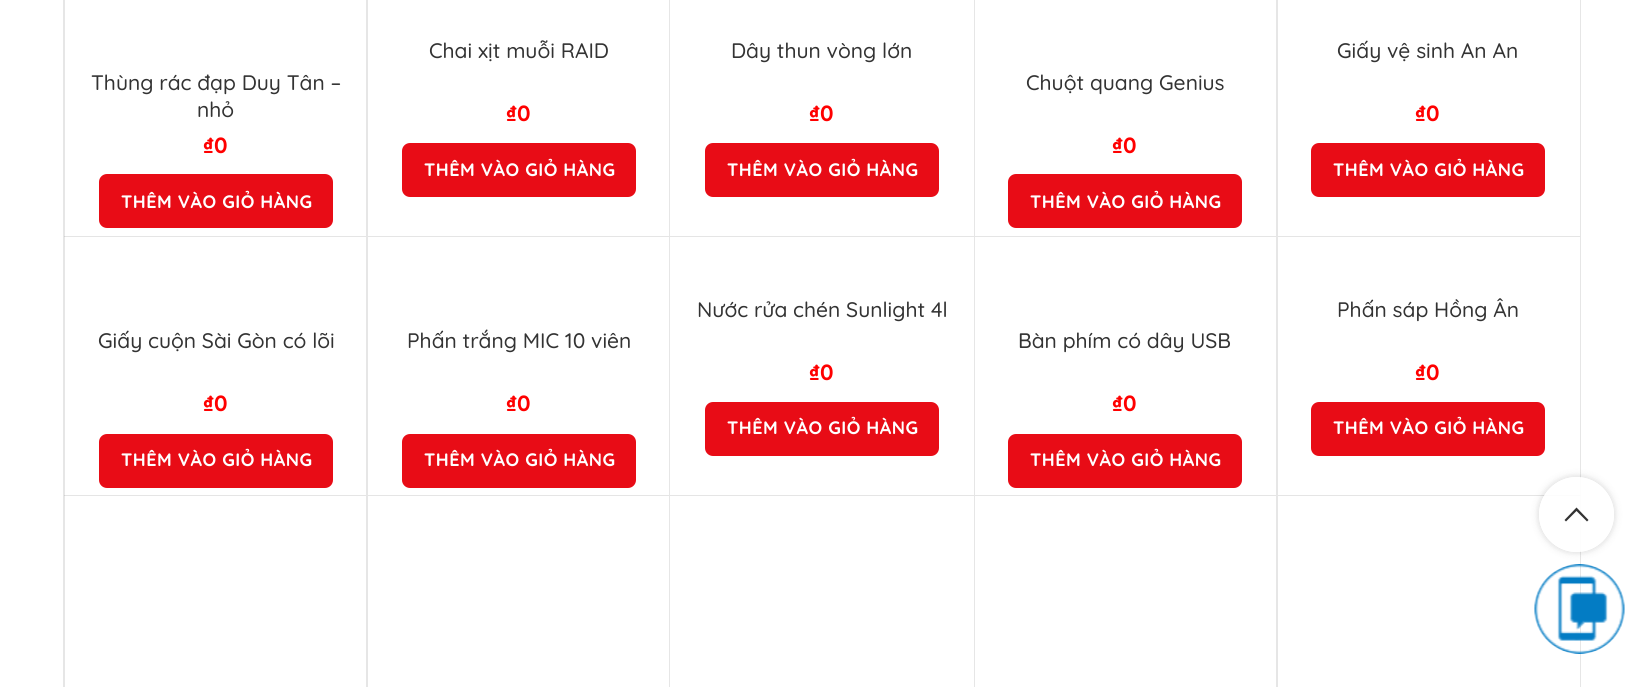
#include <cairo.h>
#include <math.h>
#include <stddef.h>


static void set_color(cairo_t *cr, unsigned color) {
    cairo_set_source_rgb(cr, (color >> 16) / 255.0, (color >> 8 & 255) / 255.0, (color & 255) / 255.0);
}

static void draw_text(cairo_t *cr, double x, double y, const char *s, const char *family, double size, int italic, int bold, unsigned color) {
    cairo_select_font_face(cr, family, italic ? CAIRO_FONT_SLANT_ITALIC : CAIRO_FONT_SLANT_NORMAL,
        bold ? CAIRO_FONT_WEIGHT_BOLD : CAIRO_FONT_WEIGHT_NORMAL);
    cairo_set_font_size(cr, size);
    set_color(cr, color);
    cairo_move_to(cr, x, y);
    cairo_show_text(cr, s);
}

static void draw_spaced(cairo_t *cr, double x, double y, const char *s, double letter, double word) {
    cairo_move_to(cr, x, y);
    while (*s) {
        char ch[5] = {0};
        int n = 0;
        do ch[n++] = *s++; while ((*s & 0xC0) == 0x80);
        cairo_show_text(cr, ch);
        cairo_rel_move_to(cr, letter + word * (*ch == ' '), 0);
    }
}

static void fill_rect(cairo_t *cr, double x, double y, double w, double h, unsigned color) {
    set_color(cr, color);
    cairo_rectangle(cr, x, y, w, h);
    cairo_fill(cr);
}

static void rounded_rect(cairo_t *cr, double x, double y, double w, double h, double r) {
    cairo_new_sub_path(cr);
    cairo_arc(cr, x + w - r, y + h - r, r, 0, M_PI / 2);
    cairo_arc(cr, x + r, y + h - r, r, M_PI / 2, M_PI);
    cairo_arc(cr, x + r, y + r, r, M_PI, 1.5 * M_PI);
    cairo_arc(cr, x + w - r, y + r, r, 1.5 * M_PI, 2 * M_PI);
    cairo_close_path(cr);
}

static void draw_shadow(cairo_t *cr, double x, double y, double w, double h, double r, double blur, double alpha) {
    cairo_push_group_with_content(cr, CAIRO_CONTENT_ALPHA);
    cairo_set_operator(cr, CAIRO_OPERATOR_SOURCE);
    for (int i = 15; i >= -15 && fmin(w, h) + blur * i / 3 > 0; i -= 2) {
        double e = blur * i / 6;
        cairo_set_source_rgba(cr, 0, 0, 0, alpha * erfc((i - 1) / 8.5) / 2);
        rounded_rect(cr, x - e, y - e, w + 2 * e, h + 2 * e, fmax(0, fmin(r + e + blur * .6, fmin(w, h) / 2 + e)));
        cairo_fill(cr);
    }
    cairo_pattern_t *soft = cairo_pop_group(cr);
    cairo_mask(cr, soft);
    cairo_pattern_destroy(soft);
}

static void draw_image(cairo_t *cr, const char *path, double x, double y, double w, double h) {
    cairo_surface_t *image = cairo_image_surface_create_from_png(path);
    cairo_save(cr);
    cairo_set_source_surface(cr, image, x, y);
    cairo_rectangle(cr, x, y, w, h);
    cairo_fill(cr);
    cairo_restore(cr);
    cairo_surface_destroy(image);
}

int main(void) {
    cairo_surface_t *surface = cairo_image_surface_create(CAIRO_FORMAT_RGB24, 1644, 687);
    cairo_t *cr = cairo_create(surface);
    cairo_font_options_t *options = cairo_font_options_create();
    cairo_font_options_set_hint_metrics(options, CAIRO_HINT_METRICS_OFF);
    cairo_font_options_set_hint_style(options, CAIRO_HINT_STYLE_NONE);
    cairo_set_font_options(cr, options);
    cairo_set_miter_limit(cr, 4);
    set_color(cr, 0xFFFFFF);
    cairo_paint(cr);
    fill_rect(cr, 63, 0, 2, 687, 0xE6E6E6);
    cairo_new_path(cr);
    cairo_move_to(cr, 368, -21);
    cairo_line_to(cr, 368, 237);
    cairo_line_to(cr, 366, 236);
    cairo_line_to(cr, 366, -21);
    cairo_close_path(cr);
    cairo_fill(cr);
    cairo_set_source_rgba(cr, 0.506, 0.506, 0.506, 0.2);
    cairo_new_path(cr);
    cairo_move_to(cr, 368, 237);
    cairo_line_to(cr, 64, 237);
    cairo_line_to(cr, 64, 236);
    cairo_line_to(cr, 366, 236);
    cairo_close_path(cr);
    cairo_fill(cr);
    draw_text(cr, 91, 90, "Thùng rác đạp Duy Tân –", "Quicksand Medium", 21, 0, 0, 0x333333);
    draw_text(cr, 197, 117, "nhỏ", "Quicksand Medium", 21, 0, 0, 0x333333);
    draw_text(cr, 203, 153, "₫0", "Quicksand", 22, 0, 1, 0xFF0000);
    set_color(cr, 0xE80C16);
    rounded_rect(cr, 99, 174, 234, 54, 8);
    cairo_fill(cr);
    cairo_set_font_size(cr, 18);
    set_color(cr, 0xFFFFFF);
    draw_spaced(cr, 121, 208, "THÊM VÀO GIỎ HÀNG", 0.5, 0);
    set_color(cr, 0xE6E6E6);
    cairo_new_path(cr);
    cairo_move_to(cr, 670, -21);
    cairo_line_to(cr, 670, 237);
    cairo_line_to(cr, 669, 236);
    cairo_line_to(cr, 669, -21);
    cairo_close_path(cr);
    cairo_fill(cr);
    cairo_set_source_rgba(cr, 0.506, 0.506, 0.506, 0.2);
    cairo_new_path(cr);
    cairo_move_to(cr, 670, 237);
    cairo_line_to(cr, 368, 237);
    cairo_line_to(cr, 368, 236);
    cairo_line_to(cr, 669, 236);
    cairo_close_path(cr);
    cairo_fill(cr);
    draw_text(cr, 429, 58, "Chai xịt muỗi RAID", "Quicksand Medium", 21, 0, 0, 0x333333);
    draw_text(cr, 506, 121, "₫0", "Quicksand", 22, 0, 1, 0xFF0000);
    set_color(cr, 0xE80C16);
    rounded_rect(cr, 402, 143, 234, 54, 8);
    cairo_fill(cr);
    cairo_set_font_size(cr, 18);
    set_color(cr, 0xFFFFFF);
    draw_spaced(cr, 424, 176, "THÊM VÀO GIỎ HÀNG", 0.5, 0);
    set_color(cr, 0xE6E6E6);
    cairo_new_path(cr);
    cairo_move_to(cr, 975, -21);
    cairo_line_to(cr, 975, 237);
    cairo_line_to(cr, 974, 236);
    cairo_line_to(cr, 974, -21);
    cairo_close_path(cr);
    cairo_fill(cr);
    cairo_set_source_rgba(cr, 0.506, 0.506, 0.506, 0.2);
    cairo_new_path(cr);
    cairo_move_to(cr, 975, 237);
    cairo_line_to(cr, 670, 237);
    cairo_line_to(cr, 670, 236);
    cairo_line_to(cr, 974, 236);
    cairo_close_path(cr);
    cairo_fill(cr);
    draw_text(cr, 731, 58, "Dây thun vòng lớn", "Quicksand Medium", 21, 0, 0, 0x333333);
    draw_text(cr, 809, 121, "₫0", "Quicksand", 22, 0, 1, 0xFF0000);
    set_color(cr, 0xE80C16);
    rounded_rect(cr, 705, 143, 234, 54, 8);
    cairo_fill(cr);
    cairo_set_font_size(cr, 18);
    set_color(cr, 0xFFFFFF);
    draw_spaced(cr, 727, 176, "THÊM VÀO GIỎ HÀNG", 0.5, 0);
    set_color(cr, 0xE6E6E6);
    cairo_new_path(cr);
    cairo_move_to(cr, 1278, -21);
    cairo_line_to(cr, 1278, 237);
    cairo_line_to(cr, 1276, 236);
    cairo_line_to(cr, 1276, -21);
    cairo_close_path(cr);
    cairo_fill(cr);
    cairo_set_source_rgba(cr, 0.506, 0.506, 0.506, 0.2);
    cairo_new_path(cr);
    cairo_move_to(cr, 1278, 237);
    cairo_line_to(cr, 975, 237);
    cairo_line_to(cr, 975, 236);
    cairo_line_to(cr, 1276, 236);
    cairo_close_path(cr);
    cairo_fill(cr);
    draw_text(cr, 1026, 90, "Chuột quang Genius", "Quicksand Medium", 21, 0, 0, 0x333333);
    draw_text(cr, 1112, 153, "₫0", "Quicksand", 22, 0, 1, 0xFF0000);
    set_color(cr, 0xE80C16);
    rounded_rect(cr, 1008, 174, 234, 54, 8);
    cairo_fill(cr);
    cairo_set_font_size(cr, 18);
    set_color(cr, 0xFFFFFF);
    draw_spaced(cr, 1030, 208, "THÊM VÀO GIỎ HÀNG", 0.5, 0);
    set_color(cr, 0xE6E6E6);
    cairo_new_path(cr);
    cairo_move_to(cr, 1581, -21);
    cairo_line_to(cr, 1581, 237);
    cairo_line_to(cr, 1580, 236);
    cairo_line_to(cr, 1580, -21);
    cairo_close_path(cr);
    cairo_fill(cr);
    cairo_set_source_rgba(cr, 0.506, 0.506, 0.506, 0.2);
    cairo_new_path(cr);
    cairo_move_to(cr, 1581, 237);
    cairo_line_to(cr, 1278, 237);
    cairo_line_to(cr, 1278, 236);
    cairo_line_to(cr, 1580, 236);
    cairo_close_path(cr);
    cairo_fill(cr);
    draw_text(cr, 1337, 58, "Giấy vệ sinh An An", "Quicksand Medium", 21, 0, 0, 0x333333);
    draw_text(cr, 1415, 121, "₫0", "Quicksand", 22, 0, 1, 0xFF0000);
    set_color(cr, 0xE80C16);
    rounded_rect(cr, 1311, 143, 234, 54, 8);
    cairo_fill(cr);
    cairo_set_font_size(cr, 18);
    set_color(cr, 0xFFFFFF);
    draw_spaced(cr, 1333, 176, "THÊM VÀO GIỎ HÀNG", 0.5, 0);
    set_color(cr, 0xE6E6E6);
    cairo_new_path(cr);
    cairo_move_to(cr, 368, 237);
    cairo_line_to(cr, 368, 496);
    cairo_line_to(cr, 366, 495);
    cairo_line_to(cr, 366, 237);
    cairo_close_path(cr);
    cairo_fill(cr);
    cairo_set_source_rgba(cr, 0.506, 0.506, 0.506, 0.2);
    cairo_new_path(cr);
    cairo_move_to(cr, 368, 496);
    cairo_line_to(cr, 64, 496);
    cairo_line_to(cr, 64, 495);
    cairo_line_to(cr, 366, 495);
    cairo_close_path(cr);
    cairo_fill(cr);
    draw_text(cr, 98, 348, "Giấy cuộn Sài Gòn có lõi", "Quicksand Medium", 21, 0, 0, 0x333333);
    draw_text(cr, 203, 411, "₫0", "Quicksand", 22, 0, 1, 0xFF0000);
    set_color(cr, 0xE80C16);
    rounded_rect(cr, 99, 434, 234, 54, 8);
    cairo_fill(cr);
    cairo_set_font_size(cr, 18);
    set_color(cr, 0xFFFFFF);
    draw_spaced(cr, 121, 466, "THÊM VÀO GIỎ HÀNG", 0.5, 0);
    set_color(cr, 0xE6E6E6);
    cairo_new_path(cr);
    cairo_move_to(cr, 670, 237);
    cairo_line_to(cr, 670, 496);
    cairo_line_to(cr, 669, 495);
    cairo_line_to(cr, 669, 237);
    cairo_close_path(cr);
    cairo_fill(cr);
    cairo_set_source_rgba(cr, 0.506, 0.506, 0.506, 0.2);
    cairo_new_path(cr);
    cairo_move_to(cr, 670, 496);
    cairo_line_to(cr, 368, 496);
    cairo_line_to(cr, 368, 495);
    cairo_line_to(cr, 669, 495);
    cairo_close_path(cr);
    cairo_fill(cr);
    draw_text(cr, 407, 348, "Phấn trắng MIC 10 viên", "Quicksand Medium", 21, 0, 0, 0x333333);
    draw_text(cr, 506, 411, "₫0", "Quicksand", 22, 0, 1, 0xFF0000);
    set_color(cr, 0xE80C16);
    rounded_rect(cr, 402, 434, 234, 54, 8);
    cairo_fill(cr);
    cairo_set_font_size(cr, 18);
    set_color(cr, 0xFFFFFF);
    draw_spaced(cr, 424, 466, "THÊM VÀO GIỎ HÀNG", 0.5, 0);
    set_color(cr, 0xE6E6E6);
    cairo_new_path(cr);
    cairo_move_to(cr, 975, 237);
    cairo_line_to(cr, 975, 496);
    cairo_line_to(cr, 974, 495);
    cairo_line_to(cr, 974, 237);
    cairo_close_path(cr);
    cairo_fill(cr);
    cairo_set_source_rgba(cr, 0.506, 0.506, 0.506, 0.2);
    cairo_new_path(cr);
    cairo_move_to(cr, 975, 496);
    cairo_line_to(cr, 670, 496);
    cairo_line_to(cr, 670, 495);
    cairo_line_to(cr, 974, 495);
    cairo_close_path(cr);
    cairo_fill(cr);
    draw_text(cr, 697, 317, "Nước rửa chén Sunlight 4l", "Quicksand Medium", 21, 0, 0, 0x333333);
    draw_text(cr, 809, 380, "₫0", "Quicksand", 22, 0, 1, 0xFF0000);
    set_color(cr, 0xE80C16);
    rounded_rect(cr, 705, 402, 234, 54, 8);
    cairo_fill(cr);
    cairo_set_font_size(cr, 18);
    set_color(cr, 0xFFFFFF);
    draw_spaced(cr, 727, 434, "THÊM VÀO GIỎ HÀNG", 0.5, 0);
    set_color(cr, 0xE6E6E6);
    cairo_new_path(cr);
    cairo_move_to(cr, 1278, 237);
    cairo_line_to(cr, 1278, 496);
    cairo_line_to(cr, 1276, 495);
    cairo_line_to(cr, 1276, 237);
    cairo_close_path(cr);
    cairo_fill(cr);
    cairo_set_source_rgba(cr, 0.506, 0.506, 0.506, 0.2);
    cairo_new_path(cr);
    cairo_move_to(cr, 1278, 496);
    cairo_line_to(cr, 975, 496);
    cairo_line_to(cr, 975, 495);
    cairo_line_to(cr, 1276, 495);
    cairo_close_path(cr);
    cairo_fill(cr);
    draw_text(cr, 1018, 348, "Bàn phím có dây USB", "Quicksand Medium", 21, 0, 0, 0x333333);
    draw_text(cr, 1112, 411, "₫0", "Quicksand", 22, 0, 1, 0xFF0000);
    set_color(cr, 0xE80C16);
    rounded_rect(cr, 1008, 434, 234, 54, 8);
    cairo_fill(cr);
    cairo_set_font_size(cr, 18);
    set_color(cr, 0xFFFFFF);
    draw_spaced(cr, 1030, 466, "THÊM VÀO GIỎ HÀNG", 0.5, 0);
    set_color(cr, 0xE6E6E6);
    cairo_new_path(cr);
    cairo_move_to(cr, 1581, 237);
    cairo_line_to(cr, 1581, 496);
    cairo_line_to(cr, 1580, 495);
    cairo_line_to(cr, 1580, 237);
    cairo_close_path(cr);
    cairo_fill(cr);
    cairo_set_source_rgba(cr, 0.506, 0.506, 0.506, 0.2);
    cairo_new_path(cr);
    cairo_move_to(cr, 1581, 496);
    cairo_line_to(cr, 1278, 496);
    cairo_line_to(cr, 1278, 495);
    cairo_line_to(cr, 1580, 495);
    cairo_close_path(cr);
    cairo_fill(cr);
    draw_text(cr, 1337, 317, "Phấn sáp Hồng Ân", "Quicksand Medium", 21, 0, 0, 0x333333);
    draw_text(cr, 1415, 380, "₫0", "Quicksand", 22, 0, 1, 0xFF0000);
    set_color(cr, 0xE80C16);
    rounded_rect(cr, 1311, 402, 234, 54, 8);
    cairo_fill(cr);
    cairo_set_font_size(cr, 18);
    set_color(cr, 0xFFFFFF);
    draw_spaced(cr, 1333, 434, "THÊM VÀO GIỎ HÀNG", 0.5, 0);
    set_color(cr, 0xE6E6E6);
    cairo_new_path(cr);
    cairo_move_to(cr, 368, 496);
    cairo_line_to(cr, 368, 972);
    cairo_line_to(cr, 366, 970);
    cairo_line_to(cr, 366, 496);
    cairo_close_path(cr);
    cairo_fill(cr);
    cairo_new_path(cr);
    cairo_move_to(cr, 670, 496);
    cairo_line_to(cr, 670, 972);
    cairo_line_to(cr, 669, 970);
    cairo_line_to(cr, 669, 496);
    cairo_close_path(cr);
    cairo_fill(cr);
    cairo_new_path(cr);
    cairo_move_to(cr, 975, 496);
    cairo_line_to(cr, 975, 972);
    cairo_line_to(cr, 974, 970);
    cairo_line_to(cr, 974, 496);
    cairo_close_path(cr);
    cairo_fill(cr);
    cairo_new_path(cr);
    cairo_move_to(cr, 1278, 496);
    cairo_line_to(cr, 1278, 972);
    cairo_line_to(cr, 1276, 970);
    cairo_line_to(cr, 1276, 496);
    cairo_close_path(cr);
    cairo_fill(cr);
    cairo_new_path(cr);
    cairo_move_to(cr, 1581, 496);
    cairo_line_to(cr, 1581, 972);
    cairo_line_to(cr, 1580, 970);
    cairo_line_to(cr, 1580, 496);
    cairo_close_path(cr);
    cairo_fill(cr);
    cairo_save(cr);
    cairo_set_fill_rule(cr, CAIRO_FILL_RULE_EVEN_ODD);
    cairo_new_path(cr);
    cairo_move_to(cr, 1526, 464);
    cairo_line_to(cr, 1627, 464);
    cairo_line_to(cr, 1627, 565);
    cairo_line_to(cr, 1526, 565);
    cairo_close_path(cr);
    cairo_move_to(cr, 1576.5, 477);
    cairo_curve_to(cr, 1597, 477, 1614, 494, 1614, 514.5);
    cairo_curve_to(cr, 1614, 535, 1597, 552, 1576.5, 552);
    cairo_curve_to(cr, 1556, 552, 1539, 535, 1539, 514.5);
    cairo_curve_to(cr, 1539, 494, 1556, 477, 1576.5, 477);
    cairo_close_path(cr);
    cairo_clip(cr);
    set_color(cr, 0x000000);
    draw_shadow(cr, 1539, 477, 75, 75, 37.5, 4, 0.17);
    cairo_restore(cr);
    draw_image(cr, "assets/img1.png", 1534, 564, 91, 90);
    cairo_set_source_rgba(cr, 1, 1, 1, 0.9);
    cairo_arc(cr, 1576.5, 514.5, 37.5, 0, 2 * M_PI);
    cairo_fill(cr);
    set_color(cr, 0x333333);
    cairo_new_path(cr);
    cairo_move_to(cr, 1576.5, 507.5);
    cairo_line_to(cr, 1588.5, 520);
    cairo_line_to(cr, 1587, 521.5);
    cairo_line_to(cr, 1576.5, 511);
    cairo_line_to(cr, 1566, 521.5);
    cairo_line_to(cr, 1564.5, 520);
    cairo_close_path(cr);
    cairo_fill(cr);
    cairo_surface_write_to_png(surface, "output.png");
    cairo_font_options_destroy(options);
    cairo_destroy(cr);
    cairo_surface_destroy(surface);
    return 0;
}
